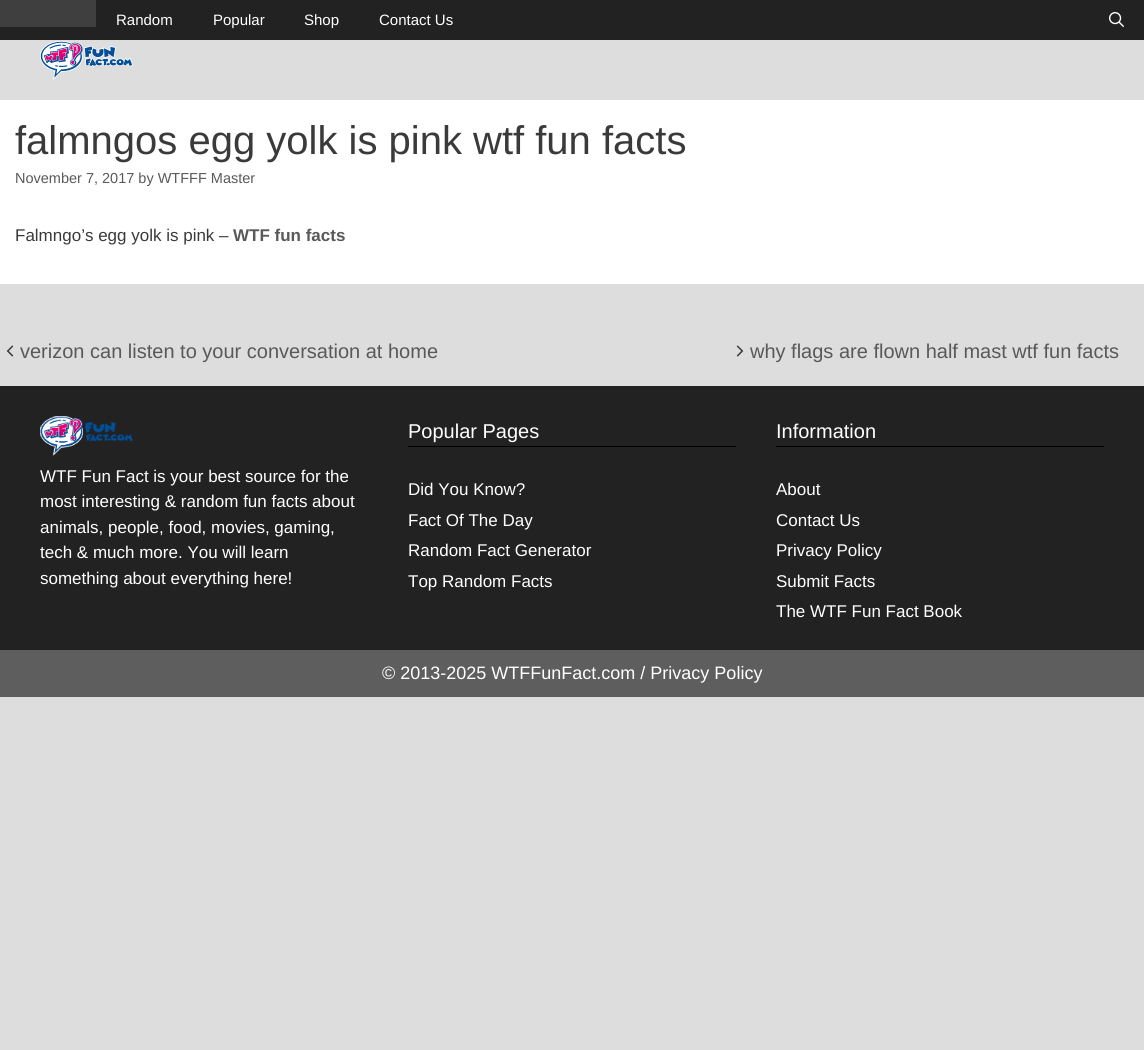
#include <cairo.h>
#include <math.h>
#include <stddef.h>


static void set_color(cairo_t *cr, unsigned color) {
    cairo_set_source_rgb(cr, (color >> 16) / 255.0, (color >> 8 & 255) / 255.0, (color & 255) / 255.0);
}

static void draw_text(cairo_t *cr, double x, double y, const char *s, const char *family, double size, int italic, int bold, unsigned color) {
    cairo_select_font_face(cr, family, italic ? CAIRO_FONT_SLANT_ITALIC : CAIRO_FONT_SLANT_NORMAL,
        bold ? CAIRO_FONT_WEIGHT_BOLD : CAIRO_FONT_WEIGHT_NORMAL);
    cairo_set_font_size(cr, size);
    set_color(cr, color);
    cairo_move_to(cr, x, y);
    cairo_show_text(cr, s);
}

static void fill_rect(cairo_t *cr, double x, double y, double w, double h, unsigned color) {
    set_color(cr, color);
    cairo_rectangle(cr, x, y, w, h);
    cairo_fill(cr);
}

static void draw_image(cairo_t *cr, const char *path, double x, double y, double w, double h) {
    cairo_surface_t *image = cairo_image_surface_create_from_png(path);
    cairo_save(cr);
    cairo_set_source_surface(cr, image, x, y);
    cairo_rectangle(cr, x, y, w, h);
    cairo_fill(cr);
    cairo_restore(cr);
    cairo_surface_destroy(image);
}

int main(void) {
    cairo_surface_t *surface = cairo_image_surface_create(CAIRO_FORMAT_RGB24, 1144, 1050);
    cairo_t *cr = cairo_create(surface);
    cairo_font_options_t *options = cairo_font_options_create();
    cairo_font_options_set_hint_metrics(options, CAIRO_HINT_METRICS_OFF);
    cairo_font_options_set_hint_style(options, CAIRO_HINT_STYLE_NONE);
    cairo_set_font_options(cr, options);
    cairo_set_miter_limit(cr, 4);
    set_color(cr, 0xDDDDDD);
    cairo_paint(cr);
    fill_rect(cr, 0, 0, 1144, 40, 0x222222);
    fill_rect(cr, 0, 0, 96, 27, 0x3F3F3F);
    draw_text(cr, 116, 25, "Random", "Liberation Sans", 15, 0, 0, 0xFFFFFF);
    draw_text(cr, 213, 25, "Popular", "Liberation Sans", 15, 0, 0, 0xFFFFFF);
    draw_text(cr, 304, 25, "Shop", "Liberation Sans", 15, 0, 0, 0xFFFFFF);
    draw_text(cr, 379, 25, "Contact Us", "Liberation Sans", 15, 0, 0, 0xFFFFFF);
    draw_image(cr, "assets/img1.png", 1109, 12, 15, 15);
    draw_image(cr, "assets/img2.png", 40, 41, 93, 39);
    fill_rect(cr, 0, 100, 1144, 184, 0xFFFFFF);
    draw_text(cr, 15, 154, "falmngos egg yolk is pink wtf fun facts", "Liberation Sans", 40, 0, 0, 0x3A3A3A);
    draw_text(cr, 15, 183, "November 7, 2017 by WTFFF Master", "Liberation Sans", 14.5, 0, 0, 0x595959);
    draw_text(cr, 15, 241, "Falmngo’s egg yolk is pink –", "Liberation Sans", 17, 0, 0, 0x3A3A3A);
    draw_text(cr, 233, 241, "WTF fun facts", "Liberation Sans", 17, 0, 1, 0x595959);
    draw_image(cr, "assets/img3.png", 6, 345, 8, 12);
    draw_text(cr, 20, 358, "verizon can listen to your conversation at home", "Liberation Sans", 20, 0, 0, 0x595959);
    draw_image(cr, "assets/img4.png", 736, 345, 8, 12);
    draw_text(cr, 750, 358, "why flags are flown half mast wtf fun facts", "Liberation Sans", 20, 0, 0, 0x595959);
    fill_rect(cr, 0, 386, 1144, 264, 0x222222);
    draw_image(cr, "assets/img5.png", 40, 416, 93, 40);
    draw_text(cr, 40, 482, "WTF Fun Fact is your best source for the", "Liberation Sans", 17, 0, 0, 0xFFFFFF);
    draw_text(cr, 40, 507, "most interesting & random fun facts about", "Liberation Sans", 17, 0, 0, 0xFFFFFF);
    draw_text(cr, 40, 533, "animals, people, food, movies, gaming,", "Liberation Sans", 17, 0, 0, 0xFFFFFF);
    draw_text(cr, 40, 558, "tech & much more. You will learn", "Liberation Sans", 17, 0, 0, 0xFFFFFF);
    draw_text(cr, 40, 584, "something about everything here!", "Liberation Sans", 17, 0, 0, 0xFFFFFF);
    fill_rect(cr, 408, 446, 328, 1, 0x000000);
    draw_text(cr, 408, 438, "Popular Pages", "Liberation Sans", 20, 0, 0, 0xFFFFFF);
    draw_text(cr, 408, 495, "Did You Know?", "Liberation Sans", 17, 0, 0, 0xFFFFFF);
    draw_text(cr, 408, 526, "Fact Of The Day", "Liberation Sans", 17, 0, 0, 0xFFFFFF);
    draw_text(cr, 408, 556, "Random Fact Generator", "Liberation Sans", 17, 0, 0, 0xFFFFFF);
    draw_text(cr, 408, 587, "Top Random Facts", "Liberation Sans", 17, 0, 0, 0xFFFFFF);
    fill_rect(cr, 776, 446, 328, 1, 0x000000);
    draw_text(cr, 776, 438, "Information", "Liberation Sans", 20, 0, 0, 0xFFFFFF);
    draw_text(cr, 776, 495, "About", "Liberation Sans", 17, 0, 0, 0xFFFFFF);
    draw_text(cr, 776, 526, "Contact Us", "Liberation Sans", 17, 0, 0, 0xFFFFFF);
    draw_text(cr, 776, 556, "Privacy Policy", "Liberation Sans", 17, 0, 0, 0xFFFFFF);
    draw_text(cr, 776, 587, "Submit Facts", "Liberation Sans", 17, 0, 0, 0xFFFFFF);
    draw_text(cr, 776, 617, "The WTF Fun Fact Book", "Liberation Sans", 17, 0, 0, 0xFFFFFF);
    fill_rect(cr, 0, 650, 1144, 47, 0x5E5E5E);
    draw_text(cr, 382, 679, "© 2013-2025 WTFFunFact.com / Privacy Policy", "Liberation Sans", 18, 0, 0, 0xFFFFFF);
    cairo_surface_write_to_png(surface, "output.png");
    cairo_font_options_destroy(options);
    cairo_destroy(cr);
    cairo_surface_destroy(surface);
    return 0;
}
